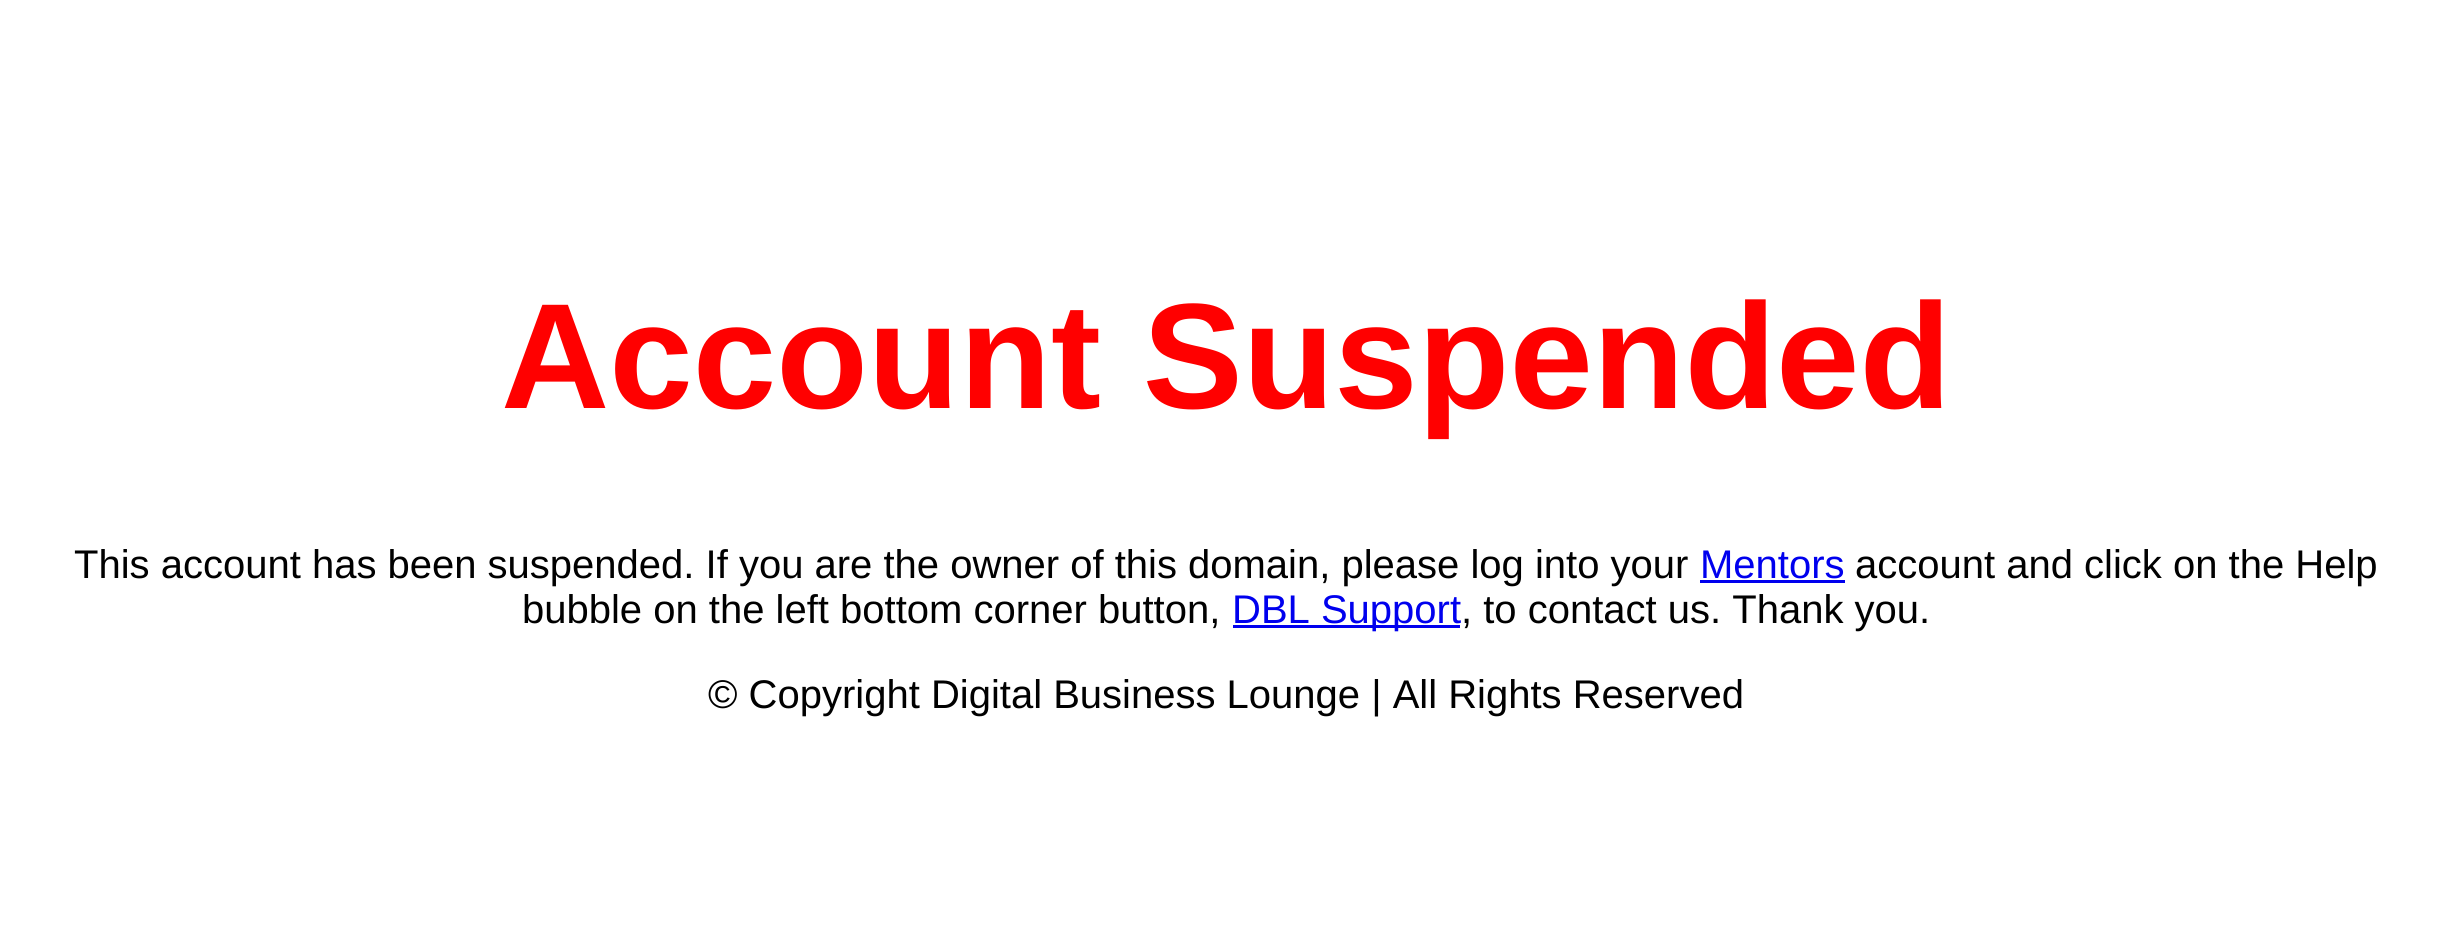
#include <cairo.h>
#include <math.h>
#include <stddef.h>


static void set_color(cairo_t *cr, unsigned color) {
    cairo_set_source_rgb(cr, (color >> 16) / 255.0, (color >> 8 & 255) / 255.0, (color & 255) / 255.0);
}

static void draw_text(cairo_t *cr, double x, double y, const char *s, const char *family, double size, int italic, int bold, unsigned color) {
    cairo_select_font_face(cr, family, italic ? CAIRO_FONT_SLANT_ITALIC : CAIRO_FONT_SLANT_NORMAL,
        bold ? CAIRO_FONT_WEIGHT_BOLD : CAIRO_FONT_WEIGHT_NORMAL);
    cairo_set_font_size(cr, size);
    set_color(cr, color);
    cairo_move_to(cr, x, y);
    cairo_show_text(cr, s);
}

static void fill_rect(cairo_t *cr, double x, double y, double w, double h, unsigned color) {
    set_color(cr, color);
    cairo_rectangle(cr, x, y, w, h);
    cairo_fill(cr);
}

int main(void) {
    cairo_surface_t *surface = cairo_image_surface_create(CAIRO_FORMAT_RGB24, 2452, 934);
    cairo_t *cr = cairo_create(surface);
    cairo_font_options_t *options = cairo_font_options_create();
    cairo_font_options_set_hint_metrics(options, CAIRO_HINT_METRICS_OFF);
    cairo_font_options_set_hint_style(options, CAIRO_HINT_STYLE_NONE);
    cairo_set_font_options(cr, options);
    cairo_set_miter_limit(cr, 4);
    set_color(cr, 0xFFFFFF);
    cairo_paint(cr);
    draw_text(cr, 501, 408, "Account Suspended", "Liberation Sans", 150, 0, 1, 0xFF0000);
    draw_text(cr, 74, 578, "This account has been suspended. If you are the owner of this domain, please log into your", "Liberation Sans", 40, 0, 0, 0x000000);
    draw_text(cr, 1700, 578, "Mentors", "Liberation Sans", 40, 0, 0, 0x0000EE);
    fill_rect(cr, 1700, 580, 145, 3, 0x0000EE);
    draw_text(cr, 1855, 578, "account and click on the Help", "Liberation Sans", 40, 0, 0, 0x000000);
    draw_text(cr, 522, 623, "bubble on the left bottom corner button,", "Liberation Sans", 40, 0, 0, 0x000000);
    fill_rect(cr, 1233, 625, 227, 3, 0x0000EE);
    draw_text(cr, 1232, 623, "DBL Support", "Liberation Sans", 40, 0, 0, 0x0000EE);
    draw_text(cr, 1461, 623, ", to contact us. Thank you.", "Liberation Sans", 40, 0, 0, 0x000000);
    draw_text(cr, 708, 708, "© Copyright Digital Business Lounge | All Rights Reserved", "Liberation Sans", 40, 0, 0, 0x000000);
    cairo_surface_write_to_png(surface, "output.png");
    cairo_font_options_destroy(options);
    cairo_destroy(cr);
    cairo_surface_destroy(surface);
    return 0;
}
